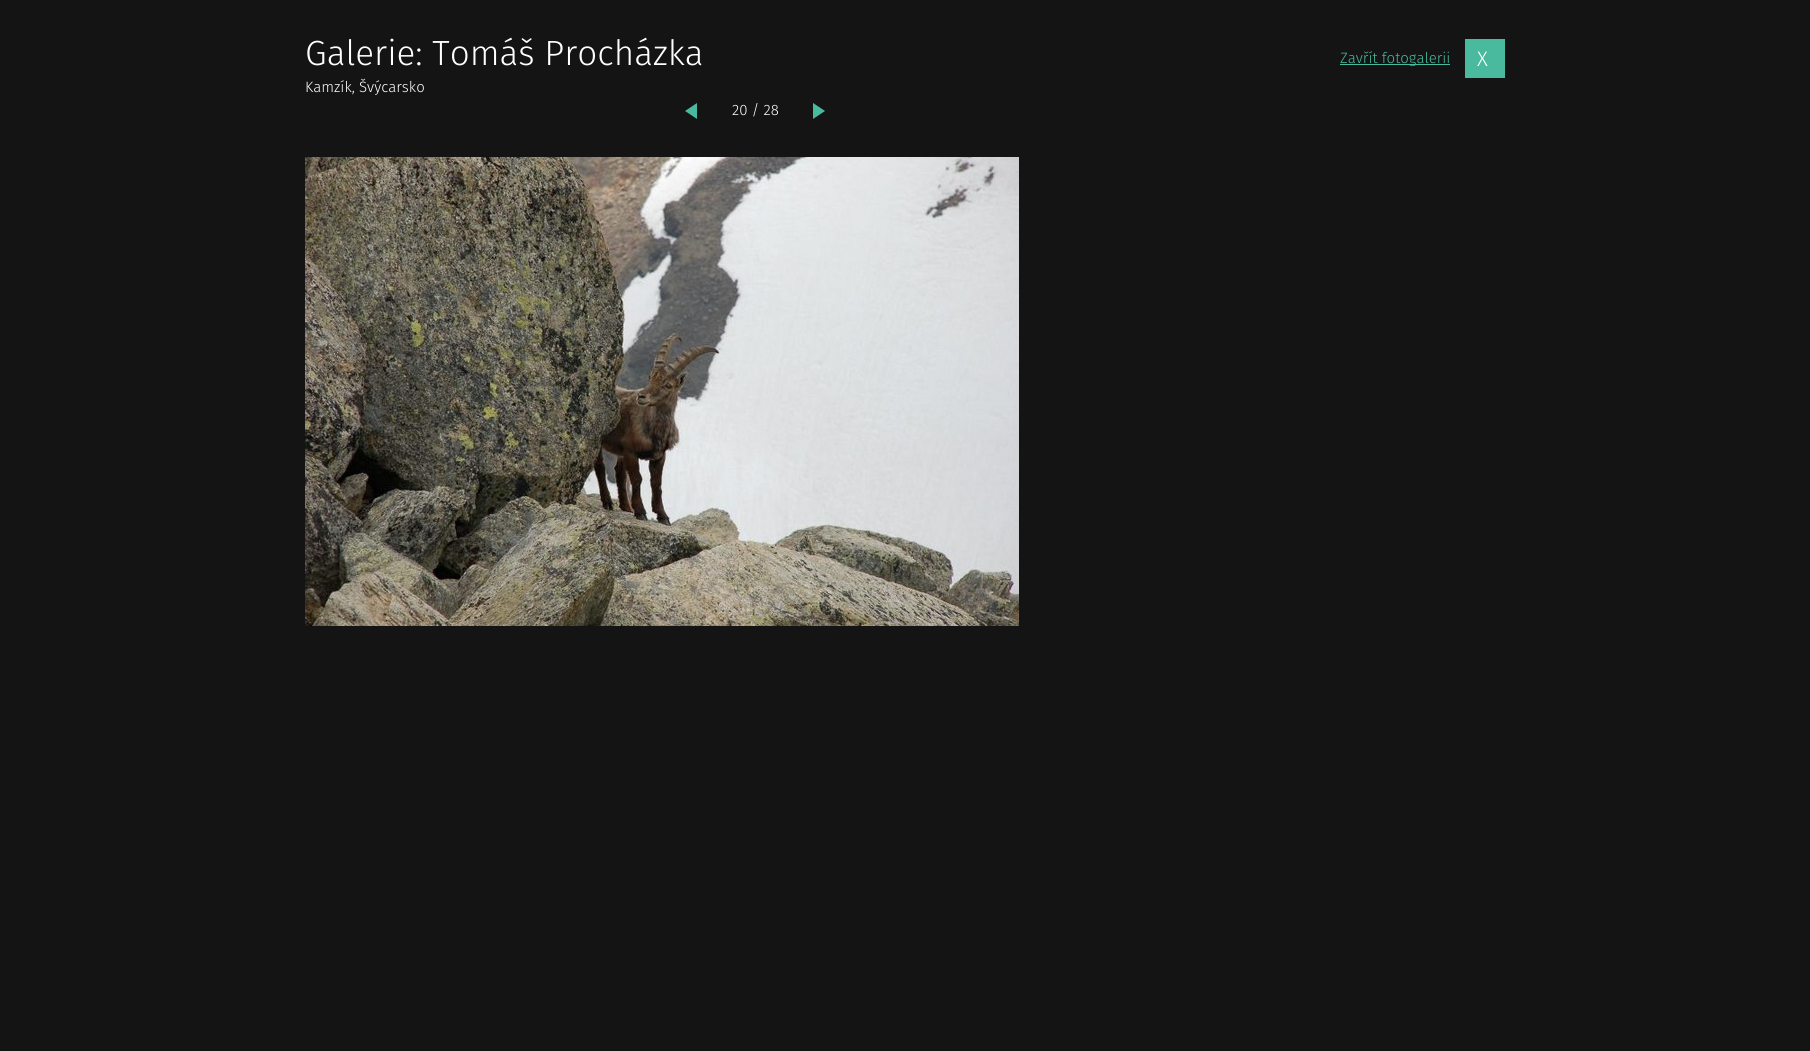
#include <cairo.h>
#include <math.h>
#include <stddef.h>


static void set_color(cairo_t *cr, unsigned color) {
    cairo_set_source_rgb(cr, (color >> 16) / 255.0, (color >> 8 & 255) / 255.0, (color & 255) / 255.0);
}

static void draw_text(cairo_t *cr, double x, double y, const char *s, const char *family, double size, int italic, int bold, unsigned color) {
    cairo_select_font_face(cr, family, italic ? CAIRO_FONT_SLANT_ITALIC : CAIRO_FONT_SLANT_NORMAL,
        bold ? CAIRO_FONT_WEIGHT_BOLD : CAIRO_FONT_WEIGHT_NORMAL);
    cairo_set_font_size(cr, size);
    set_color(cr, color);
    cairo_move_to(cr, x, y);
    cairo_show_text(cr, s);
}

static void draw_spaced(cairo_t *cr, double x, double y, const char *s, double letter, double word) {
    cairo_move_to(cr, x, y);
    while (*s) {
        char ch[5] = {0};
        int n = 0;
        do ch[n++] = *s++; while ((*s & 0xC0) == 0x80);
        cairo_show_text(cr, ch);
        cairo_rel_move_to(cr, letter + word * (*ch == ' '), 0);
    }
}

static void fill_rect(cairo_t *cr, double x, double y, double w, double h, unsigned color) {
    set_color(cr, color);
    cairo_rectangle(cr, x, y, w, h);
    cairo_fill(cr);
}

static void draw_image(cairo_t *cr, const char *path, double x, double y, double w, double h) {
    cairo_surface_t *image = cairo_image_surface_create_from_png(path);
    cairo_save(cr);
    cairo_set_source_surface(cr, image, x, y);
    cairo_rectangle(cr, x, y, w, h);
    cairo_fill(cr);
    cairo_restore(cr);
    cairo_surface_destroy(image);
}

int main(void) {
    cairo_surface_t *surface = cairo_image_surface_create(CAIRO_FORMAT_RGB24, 1810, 1051);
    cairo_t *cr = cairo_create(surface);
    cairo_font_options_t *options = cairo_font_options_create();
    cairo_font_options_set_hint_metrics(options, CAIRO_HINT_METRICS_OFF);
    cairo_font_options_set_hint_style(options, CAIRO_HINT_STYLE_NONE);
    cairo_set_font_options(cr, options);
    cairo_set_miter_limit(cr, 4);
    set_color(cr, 0x141414);
    cairo_paint(cr);
    draw_text(cr, 305, 65, "Galerie: Tomáš Procházka", "Fira Sans Light", 35, 0, 0, 0xFFFFFF);
    draw_text(cr, 305, 92, "Kamzík, Švýcarsko", "Fira Sans Light", 15, 0, 0, 0xFFFFFF);
    set_color(cr, 0x49BA9D);
    cairo_new_path(cr);
    cairo_move_to(cr, 697, 103);
    cairo_line_to(cr, 697, 119);
    cairo_line_to(cr, 685, 111);
    cairo_close_path(cr);
    cairo_fill(cr);
    draw_text(cr, 732, 115, "20 / 28", "Fira Sans Light", 15, 0, 0, 0xFFFFFF);
    set_color(cr, 0x49BA9D);
    cairo_new_path(cr);
    cairo_move_to(cr, 813, 119);
    cairo_line_to(cr, 813, 103);
    cairo_line_to(cr, 825, 111);
    cairo_close_path(cr);
    cairo_fill(cr);
    fill_rect(cr, 1340, 64, 110, 1, 0x49BA9D);
    draw_text(cr, 1340, 63, "Zavřít fotogalerii", "Fira Sans Light", 15, 0, 0, 0x49BA9D);
    fill_rect(cr, 1465, 39, 40, 39, 0x49BA9D);
    cairo_set_font_size(cr, 21);
    set_color(cr, 0xFFFFFF);
    draw_spaced(cr, 1477, 66, "X", 5, 0);
    draw_image(cr, "assets/img1.png", 305, 157, 714, 469);
    cairo_surface_write_to_png(surface, "output.png");
    cairo_font_options_destroy(options);
    cairo_destroy(cr);
    cairo_surface_destroy(surface);
    return 0;
}
